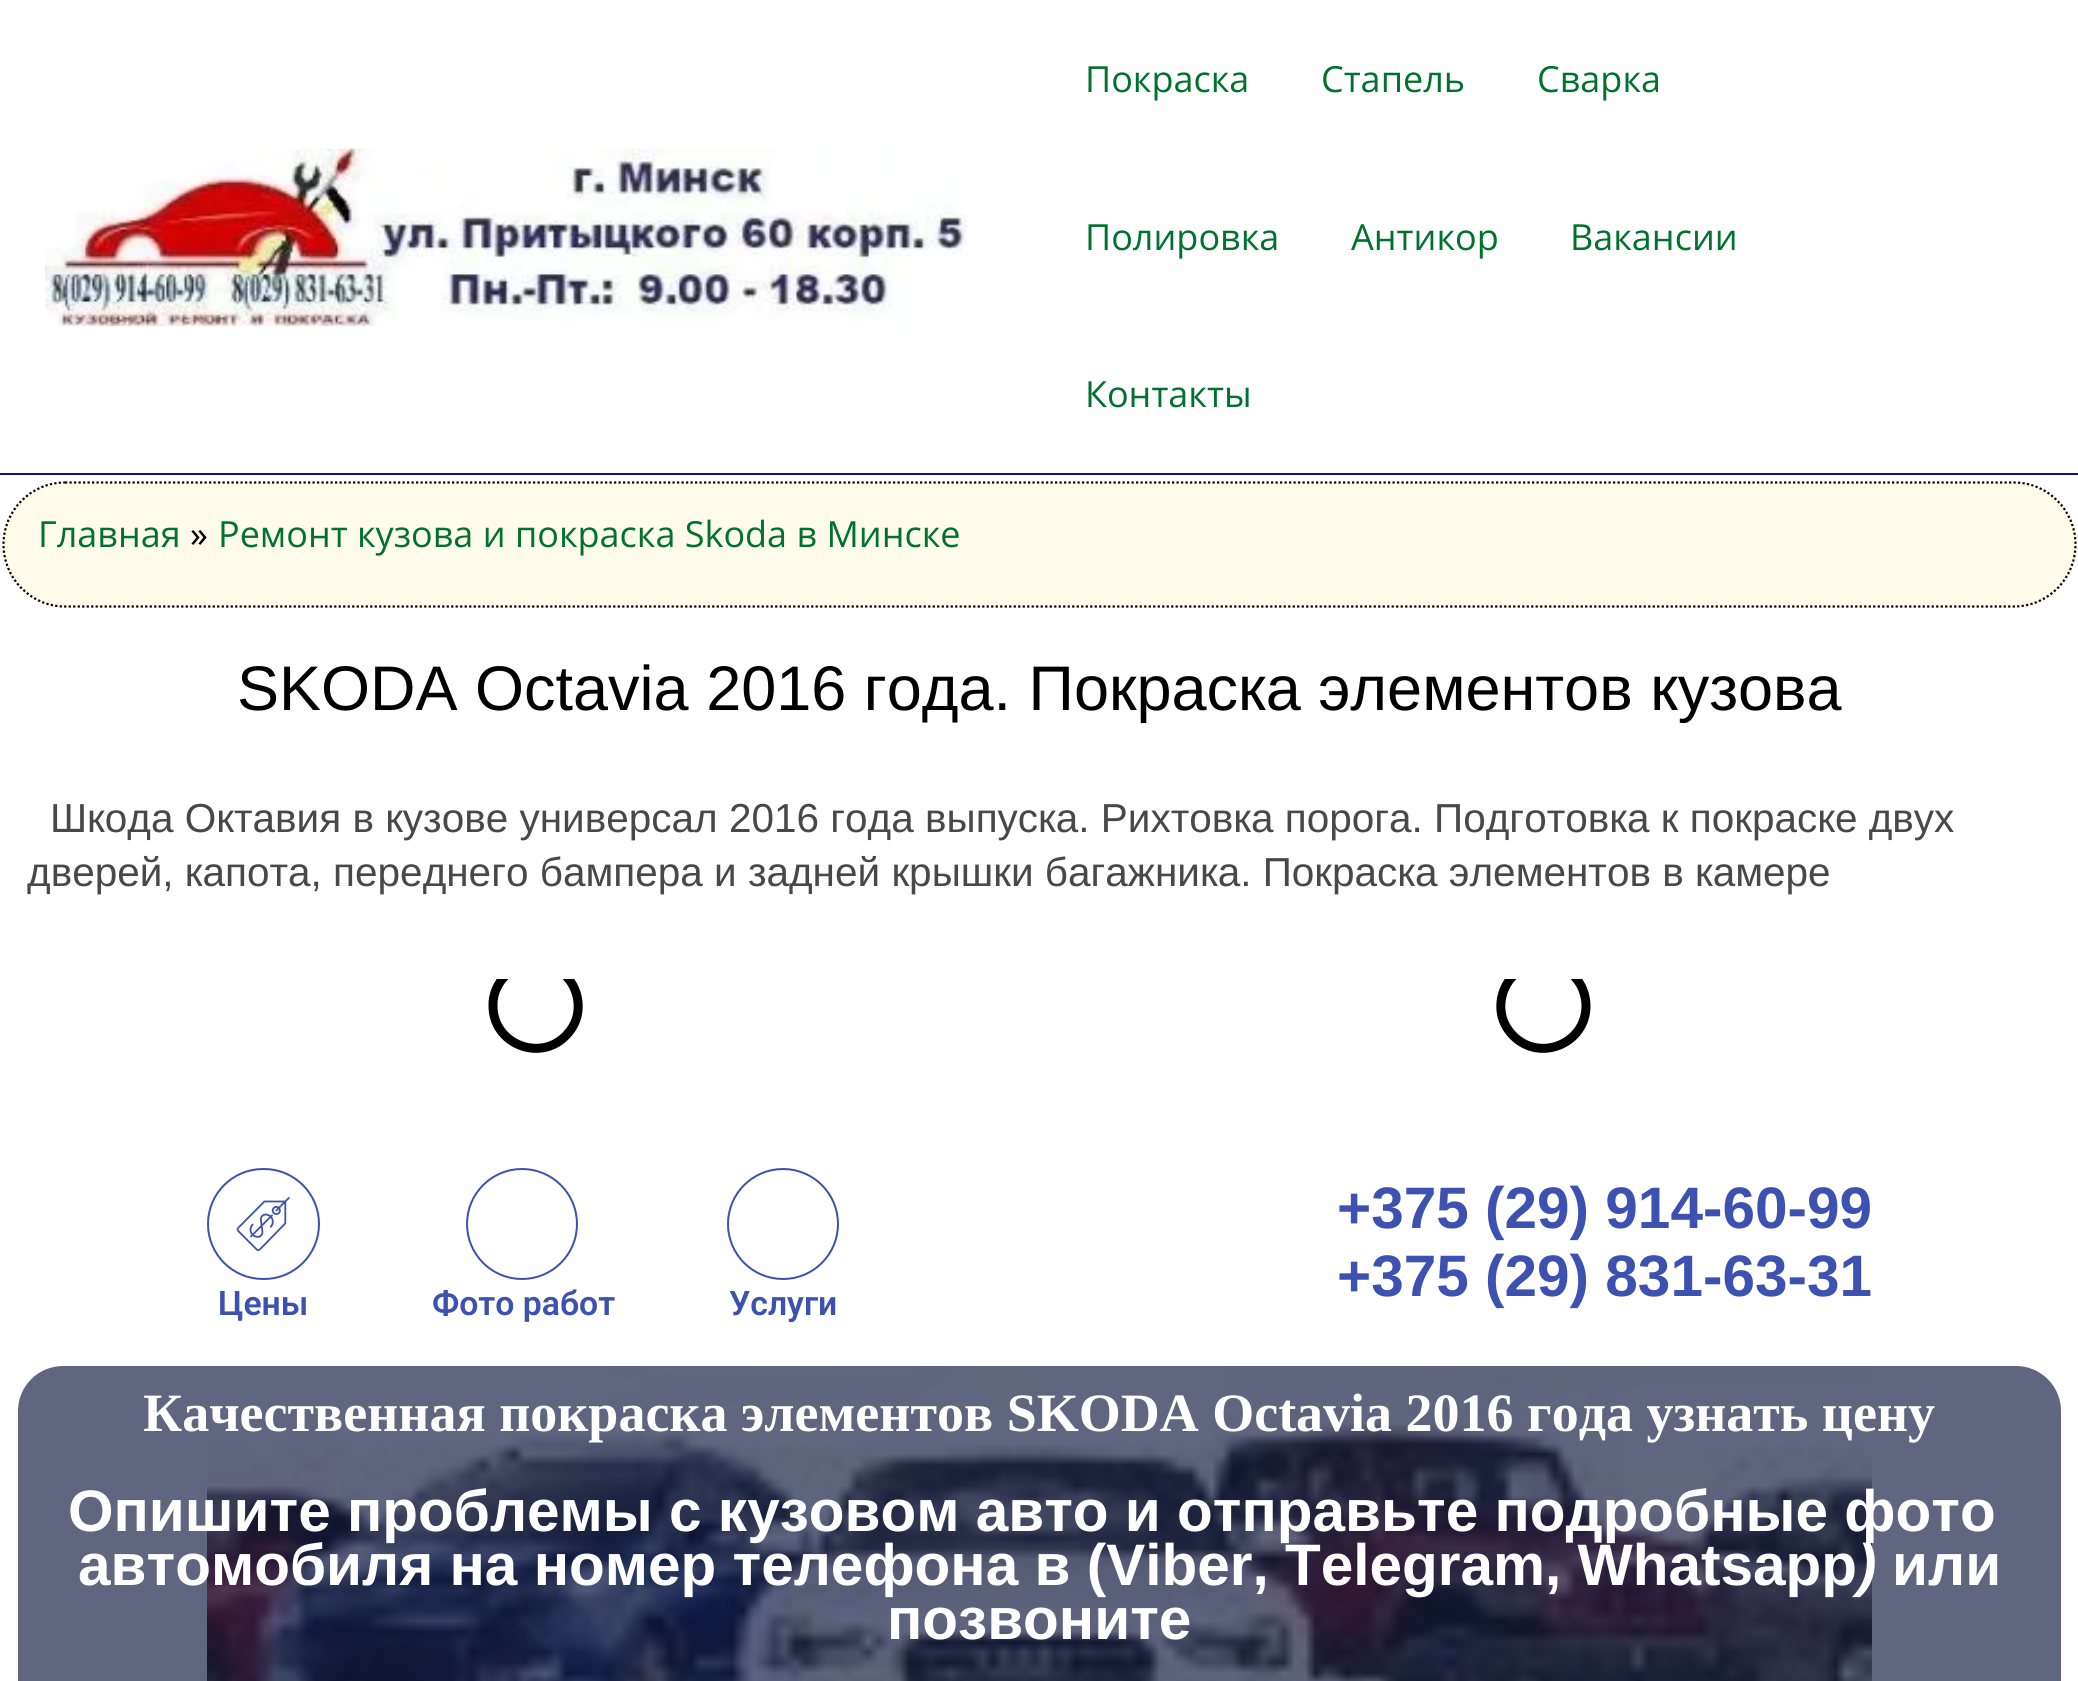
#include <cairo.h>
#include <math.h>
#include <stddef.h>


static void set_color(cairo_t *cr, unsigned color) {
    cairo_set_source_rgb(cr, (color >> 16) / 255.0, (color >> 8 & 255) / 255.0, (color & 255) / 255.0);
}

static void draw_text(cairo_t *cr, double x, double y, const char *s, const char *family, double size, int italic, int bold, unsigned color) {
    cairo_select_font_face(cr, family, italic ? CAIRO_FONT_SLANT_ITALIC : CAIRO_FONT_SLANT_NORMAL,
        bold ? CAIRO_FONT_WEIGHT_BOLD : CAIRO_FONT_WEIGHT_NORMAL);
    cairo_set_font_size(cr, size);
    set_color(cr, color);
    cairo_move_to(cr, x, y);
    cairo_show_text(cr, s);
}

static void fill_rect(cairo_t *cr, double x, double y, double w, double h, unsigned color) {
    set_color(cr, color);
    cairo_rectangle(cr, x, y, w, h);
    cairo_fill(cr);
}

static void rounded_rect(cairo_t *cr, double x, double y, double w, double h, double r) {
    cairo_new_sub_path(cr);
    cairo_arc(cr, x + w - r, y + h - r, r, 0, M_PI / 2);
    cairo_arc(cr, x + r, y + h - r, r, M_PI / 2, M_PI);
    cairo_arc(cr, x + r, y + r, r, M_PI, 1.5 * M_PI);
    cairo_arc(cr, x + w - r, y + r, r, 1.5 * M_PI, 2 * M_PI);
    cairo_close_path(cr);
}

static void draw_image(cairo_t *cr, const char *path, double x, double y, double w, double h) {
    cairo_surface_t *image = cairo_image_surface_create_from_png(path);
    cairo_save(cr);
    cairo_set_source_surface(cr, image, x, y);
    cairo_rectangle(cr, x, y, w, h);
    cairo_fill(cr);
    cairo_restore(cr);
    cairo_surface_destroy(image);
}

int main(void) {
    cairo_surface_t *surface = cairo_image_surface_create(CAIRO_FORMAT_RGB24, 2078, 1681);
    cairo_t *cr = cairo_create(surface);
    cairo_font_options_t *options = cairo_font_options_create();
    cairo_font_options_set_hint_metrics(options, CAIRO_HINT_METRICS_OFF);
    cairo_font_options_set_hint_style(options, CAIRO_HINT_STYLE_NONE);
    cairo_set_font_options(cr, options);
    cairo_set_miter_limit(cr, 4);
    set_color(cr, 0xFFFFFF);
    cairo_paint(cr);
    fill_rect(cr, 0, 473, 2078, 2, 0x1C0A85);
    draw_image(cr, "assets/img1.png", 45, 148, 923, 179);
    draw_text(cr, 1085, 92, "Покраска", "Open Sans", 36, 0, 0, 0x00722C);
    draw_text(cr, 1321, 92, "Стапель", "Open Sans", 36, 0, 0, 0x00722C);
    draw_text(cr, 1537, 92, "Сварка", "Open Sans", 36, 0, 0, 0x00722C);
    draw_text(cr, 1085, 250, "Полировка", "Open Sans", 36, 0, 0, 0x00722C);
    draw_text(cr, 1351, 250, "Антикор", "Open Sans", 36, 0, 0, 0x00722C);
    draw_text(cr, 1570, 250, "Вакансии", "Open Sans", 36, 0, 0, 0x00722C);
    draw_text(cr, 1085, 407, "Контакты", "Open Sans", 36, 0, 0, 0x00722C);
    set_color(cr, 0xFFFBEA);
    rounded_rect(cr, 2, 482, 2075, 126, 63);
    cairo_fill(cr);
    cairo_new_path(cr);
    cairo_move_to(cr, 65, 482.5);
    cairo_line_to(cr, 2014, 482.5);
    cairo_curve_to(cr, 2048, 482.5, 2075.5, 510.5, 2075.5, 544.5);
    cairo_curve_to(cr, 2075.5, 578.5, 2048, 606.5, 2014, 606.5);
    cairo_line_to(cr, 65, 606.5);
    cairo_curve_to(cr, 31, 606.5, 3.5, 578.5, 3.5, 544.5);
    cairo_curve_to(cr, 3.5, 510.5, 31, 482.5, 65, 482.5);
    cairo_close_path(cr);
    set_color(cr, 0x000000);
    cairo_set_line_width(cr, 2.2);
    cairo_set_dash(cr, (double[]){2.25, 2.25}, 2, 0);
    cairo_stroke(cr);
    draw_text(cr, 38, 547, "Главная", "Open Sans", 36, 0, 0, 0x00722C);
    draw_text(cr, 190, 547, "»", "Open Sans", 36, 0, 0, 0x000000);
    draw_text(cr, 218, 547, "Ремонт кузова и покраска Skoda в Минске", "Open Sans", 36, 0, 0, 0x00722C);
    draw_text(cr, 237, 710, "SKODA Octavia 2016 года. Покраска элементов кузова", "Liberation Sans", 63, 0, 0, 0x000000);
    draw_text(cr, 50, 832, "Шкода Октавия в кузове универсал 2016 года выпуска. Рихтовка порога. Подготовка к покраске двух", "Liberation Sans", 40.5, 0, 0, 0x484848);
    draw_text(cr, 27, 886, "дверей, капота, переднего бампера и задней крышки багажника. Покраска элементов в камере", "Liberation Sans", 40.5, 0, 0, 0x484848);
    cairo_save(cr);
    cairo_rectangle(cr, 34, 979, 2011, 124);
    cairo_clip(cr);
    cairo_new_path(cr);
    cairo_move_to(cr, 565.5, 975.5);
    cairo_curve_to(cr, 575.5, 985.5, 580, 1000, 577.5, 1014);
    cairo_curve_to(cr, 576, 1022.5, 571.5, 1030, 565.5, 1036);
    cairo_curve_to(cr, 539, 1062.5, 493, 1043.5, 493, 1006);
    cairo_curve_to(cr, 492.5, 994.5, 497.5, 983.5, 505.5, 975.5);
    set_color(cr, 0x000000);
    cairo_set_line_width(cr, 9);
    cairo_set_dash(cr, NULL, 0, 0);
    cairo_stroke(cr);
    cairo_new_path(cr);
    cairo_move_to(cr, 1573.5, 975.5);
    cairo_curve_to(cr, 1581.5, 983.5, 1586, 994.5, 1586, 1006);
    cairo_curve_to(cr, 1586, 1043.5, 1540, 1062.5, 1513.5, 1036);
    cairo_curve_to(cr, 1507.5, 1030, 1503, 1022.5, 1501.5, 1014);
    cairo_curve_to(cr, 1499, 1000, 1503.5, 985.5, 1513.5, 975.5);
    cairo_stroke(cr);
    cairo_restore(cr);
    rounded_rect(cr, 208, 1169, 111, 110, 55);
    set_color(cr, 0x3D52B0);
    cairo_set_line_width(cr, 2);
    cairo_set_dash(cr, NULL, 0, 0);
    cairo_stroke(cr);
    draw_image(cr, "assets/img2.png", 236, 1197, 54, 54);
    draw_text(cr, 218, 1315, "Цены", "Roboto SemiBold", 33.75, 0, 0, 0x3D52B0);
    cairo_new_path(cr);
    cairo_arc(cr, 522, 1224, 55, 0, 2 * M_PI);
    cairo_stroke(cr);
    draw_text(cr, 432, 1315, "Фото работ", "Roboto SemiBold", 33.75, 0, 0, 0x3D52B0);
    cairo_new_path(cr);
    cairo_arc(cr, 783, 1224, 55, 0, 2 * M_PI);
    cairo_stroke(cr);
    draw_text(cr, 729, 1315, "Услуги", "Roboto SemiBold", 33.75, 0, 0, 0x3D52B0);
    draw_text(cr, 1337, 1228, "+375 (29) 914-60-99", "Liberation Sans", 58.5, 0, 1, 0x3D52B0);
    draw_text(cr, 1337, 1296, "+375 (29) 831-63-31", "Liberation Sans", 58.5, 0, 1, 0x3D52B0);
    draw_image(cr, "assets/img3.png", 207, 1366, 1665, 315);
    cairo_set_source_rgba(cr, 0.09, 0.122, 0.267, 0.68);
    rounded_rect(cr, 18, 1366, 2043, 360, 45);
    cairo_fill(cr);
    draw_text(cr, 143, 1431, "Качественная покраска элементов SKODA Octavia 2016 года узнать цену", "Liberation Serif", 54, 0, 1, 0xFFFFFF);
    draw_text(cr, 68, 1531, "Опишите проблемы с кузовом авто и отправьте подробные фото", "Liberation Sans", 58.5, 0, 1, 0xFFFFFF);
    draw_text(cr, 78, 1585, "автомобиля на номер телефона в (Viber, Telegram, Whatsapp", "Liberation Sans", 58.5, 0, 1, 0xFFFFFF);
    draw_text(cr, 1857, 1585, ")", "Liberation Sans", 58.5, 1, 1, 0xFFFFFF);
    draw_text(cr, 1892, 1585, "или", "Liberation Sans", 58.5, 0, 1, 0xFFFFFF);
    draw_text(cr, 887, 1639, "позвоните", "Liberation Sans", 58.5, 0, 1, 0xFFFFFF);
    cairo_surface_write_to_png(surface, "output.png");
    cairo_font_options_destroy(options);
    cairo_destroy(cr);
    cairo_surface_destroy(surface);
    return 0;
}
